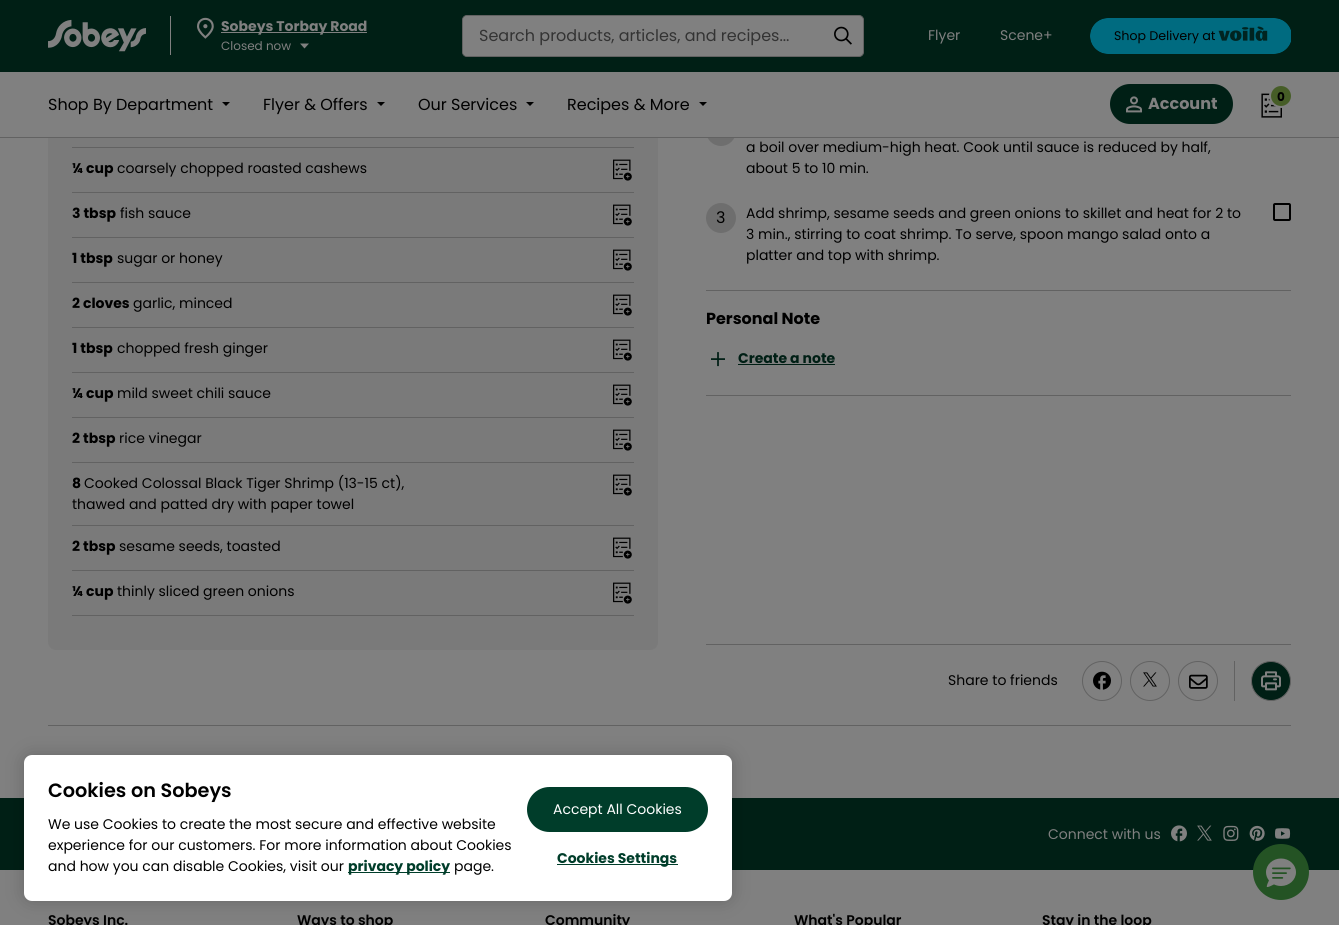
#include <cairo.h>
#include <math.h>
#include <stddef.h>


static void set_color(cairo_t *cr, unsigned color) {
    cairo_set_source_rgb(cr, (color >> 16) / 255.0, (color >> 8 & 255) / 255.0, (color & 255) / 255.0);
}

static void draw_text(cairo_t *cr, double x, double y, const char *s, const char *family, double size, int italic, int bold, unsigned color) {
    cairo_select_font_face(cr, family, italic ? CAIRO_FONT_SLANT_ITALIC : CAIRO_FONT_SLANT_NORMAL,
        bold ? CAIRO_FONT_WEIGHT_BOLD : CAIRO_FONT_WEIGHT_NORMAL);
    cairo_set_font_size(cr, size);
    set_color(cr, color);
    cairo_move_to(cr, x, y);
    cairo_show_text(cr, s);
}

static void fill_rect(cairo_t *cr, double x, double y, double w, double h, unsigned color) {
    set_color(cr, color);
    cairo_rectangle(cr, x, y, w, h);
    cairo_fill(cr);
}

static void rounded_rect(cairo_t *cr, double x, double y, double w, double h, double r) {
    cairo_new_sub_path(cr);
    cairo_arc(cr, x + w - r, y + h - r, r, 0, M_PI / 2);
    cairo_arc(cr, x + r, y + h - r, r, M_PI / 2, M_PI);
    cairo_arc(cr, x + r, y + r, r, M_PI, 1.5 * M_PI);
    cairo_arc(cr, x + w - r, y + r, r, 1.5 * M_PI, 2 * M_PI);
    cairo_close_path(cr);
}

static void draw_shadow(cairo_t *cr, double x, double y, double w, double h, double r, double blur, double alpha) {
    cairo_push_group_with_content(cr, CAIRO_CONTENT_ALPHA);
    cairo_set_operator(cr, CAIRO_OPERATOR_SOURCE);
    for (int i = 15; i >= -15 && fmin(w, h) + blur * i / 3 > 0; i -= 2) {
        double e = blur * i / 6;
        cairo_set_source_rgba(cr, 0, 0, 0, alpha * erfc((i - 1) / 8.5) / 2);
        rounded_rect(cr, x - e, y - e, w + 2 * e, h + 2 * e, fmax(0, fmin(r + e + blur * .6, fmin(w, h) / 2 + e)));
        cairo_fill(cr);
    }
    cairo_pattern_t *soft = cairo_pop_group(cr);
    cairo_mask(cr, soft);
    cairo_pattern_destroy(soft);
}

static void draw_image(cairo_t *cr, const char *path, double x, double y, double w, double h) {
    cairo_surface_t *image = cairo_image_surface_create_from_png(path);
    cairo_save(cr);
    cairo_set_source_surface(cr, image, x, y);
    cairo_rectangle(cr, x, y, w, h);
    cairo_fill(cr);
    cairo_restore(cr);
    cairo_surface_destroy(image);
}

int main(void) {
    cairo_surface_t *surface = cairo_image_surface_create(CAIRO_FORMAT_RGB24, 1339, 925);
    cairo_t *cr = cairo_create(surface);
    cairo_font_options_t *options = cairo_font_options_create();
    cairo_font_options_set_hint_metrics(options, CAIRO_HINT_METRICS_OFF);
    cairo_font_options_set_hint_style(options, CAIRO_HINT_STYLE_NONE);
    cairo_set_font_options(cr, options);
    cairo_set_miter_limit(cr, 4);
    set_color(cr, 0x808080);
    cairo_paint(cr);
    set_color(cr, 0x7A7A7A);
    rounded_rect(cr, 48, -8, 610, 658, 8);
    cairo_fill(cr);
    fill_rect(cr, 0, 0, 1339, 72, 0x001F15);
    draw_image(cr, "assets/img1.png", 48, 19, 98, 33);
    fill_rect(cr, 170, 16, 1, 39, 0x808080);
    draw_image(cr, "assets/img2.png", 197, 17, 17, 22);
    fill_rect(cr, 221, 32, 146, 1, 0x808080);
    draw_text(cr, 221, 31, "Sobeys Torbay Road", "Poppins", 14, 0, 1, 0x808080);
    draw_text(cr, 221, 50, "Closed now", "Poppins", 12, 0, 0, 0x808080);
    cairo_new_path(cr);
    cairo_move_to(cr, 304.5, 48.5);
    cairo_line_to(cr, 300, 43.5);
    cairo_line_to(cr, 309, 43.5);
    cairo_close_path(cr);
    cairo_fill(cr);
    rounded_rect(cr, 462.5, 15.5, 401, 41, 4.5);
    cairo_fill_preserve(cr);
    set_color(cr, 0x626262);
    cairo_set_line_width(cr, 1);
    cairo_stroke(cr);
    set_color(cr, 0x808080);
    cairo_new_path(cr);
    cairo_move_to(cr, 467, 16);
    cairo_line_to(cr, 479, 16);
    cairo_line_to(cr, 479, 56);
    cairo_line_to(cr, 467, 56);
    cairo_curve_to(cr, 465, 56, 463, 54, 463, 52);
    cairo_line_to(cr, 463, 20);
    cairo_curve_to(cr, 463, 18, 465, 16, 467, 16);
    cairo_close_path(cr);
    cairo_fill(cr);
    draw_text(cr, 479, 41, "Search products, articles, and recipes...", "Poppins", 16, 0, 0, 0x333333);
    draw_image(cr, "assets/img3.png", 834, 26, 18, 19);
    draw_text(cr, 928, 40, "Flyer", "Poppins", 14, 0, 0, 0x808080);
    draw_text(cr, 1000, 40, "Scene+", "Poppins", 14, 0, 0, 0x808080);
    draw_image(cr, "assets/img4.png", 1090, 18, 201, 36);
    set_color(cr, 0x6E6E6E);
    cairo_arc(cr, 721, 131, 15, 0, 2 * M_PI);
    cairo_fill(cr);
    fill_rect(cr, 48, 72, 688, 65, 0x808080);
    fill_rect(cr, 0, 137, 1339, 1, 0x626262);
    draw_text(cr, 48, 110, "Shop By Department", "Poppins", 16, 0, 0, 0x000000);
    cairo_new_path(cr);
    cairo_move_to(cr, 226, 106);
    cairo_line_to(cr, 222, 102);
    cairo_line_to(cr, 230, 102);
    cairo_close_path(cr);
    cairo_fill(cr);
    draw_text(cr, 263, 110, "Flyer & Offers", "Poppins", 16, 0, 0, 0x000000);
    cairo_new_path(cr);
    cairo_move_to(cr, 381, 106);
    cairo_line_to(cr, 377, 102);
    cairo_line_to(cr, 385, 102);
    cairo_close_path(cr);
    cairo_fill(cr);
    draw_text(cr, 418, 110, "Our Services", "Poppins", 16, 0, 0, 0x000000);
    cairo_new_path(cr);
    cairo_move_to(cr, 530, 106);
    cairo_line_to(cr, 526, 102);
    cairo_line_to(cr, 534, 102);
    cairo_close_path(cr);
    cairo_fill(cr);
    draw_text(cr, 567, 110, "Recipes & More", "Poppins", 16, 0, 0, 0x000000);
    cairo_new_path(cr);
    cairo_move_to(cr, 703, 106);
    cairo_line_to(cr, 699, 102);
    cairo_line_to(cr, 707, 102);
    cairo_close_path(cr);
    cairo_fill(cr);
    set_color(cr, 0x001F15);
    rounded_rect(cr, 1110, 84, 123, 40, 20);
    cairo_fill(cr);
    draw_image(cr, "assets/img5.png", 1126, 96, 16, 17);
    draw_text(cr, 1148, 109, "Account", "Poppins", 16, 0, 1, 0x808080);
    draw_image(cr, "assets/img6.png", 1261, 93, 21, 25);
    set_color(cr, 0x465D27);
    cairo_arc(cr, 1281, 96, 11, 0, 2 * M_PI);
    cairo_fill_preserve(cr);
    set_color(cr, 0x808080);
    cairo_set_line_width(cr, 2);
    cairo_stroke(cr);
    draw_text(cr, 1277, 101, "0", "Poppins", 12, 0, 1, 0x000000);
    fill_rect(cr, 72, 147, 562, 1, 0x626262);
    draw_text(cr, 72, 173, "¼ cup", "Poppins", 14, 0, 1, 0x000000);
    draw_text(cr, 117, 173, "coarsely chopped roasted cashews", "Poppins", 14, 0, 0, 0x000000);
    draw_image(cr, "assets/img7.png", 613, 159, 19, 22);
    fill_rect(cr, 72, 192, 562, 1, 0x626262);
    draw_text(cr, 72, 218, "3 tbsp", "Poppins", 14, 0, 1, 0x000000);
    draw_text(cr, 120, 218, "fish sauce", "Poppins", 14, 0, 0, 0x000000);
    draw_image(cr, "assets/img7.png", 613, 204, 19, 22);
    fill_rect(cr, 72, 237, 562, 1, 0x626262);
    draw_text(cr, 72, 263, "1 tbsp", "Poppins", 14, 0, 1, 0x000000);
    draw_text(cr, 117, 263, "sugar or honey", "Poppins", 14, 0, 0, 0x000000);
    draw_image(cr, "assets/img7.png", 613, 249, 19, 22);
    fill_rect(cr, 72, 282, 562, 1, 0x626262);
    draw_text(cr, 72, 308, "2 cloves", "Poppins", 14, 0, 1, 0x000000);
    draw_text(cr, 133, 308, "garlic, minced", "Poppins", 14, 0, 0, 0x000000);
    draw_image(cr, "assets/img7.png", 613, 294, 19, 22);
    fill_rect(cr, 72, 327, 562, 1, 0x626262);
    draw_text(cr, 72, 353, "1 tbsp", "Poppins", 14, 0, 1, 0x000000);
    draw_text(cr, 117, 353, "chopped fresh ginger", "Poppins", 14, 0, 0, 0x000000);
    draw_image(cr, "assets/img7.png", 613, 339, 19, 22);
    fill_rect(cr, 72, 372, 562, 1, 0x626262);
    draw_text(cr, 72, 398, "¼ cup", "Poppins", 14, 0, 1, 0x000000);
    draw_text(cr, 117, 398, "mild sweet chili sauce", "Poppins", 14, 0, 0, 0x000000);
    draw_image(cr, "assets/img7.png", 613, 384, 19, 22);
    fill_rect(cr, 72, 417, 562, 1, 0x626262);
    draw_text(cr, 72, 443, "2 tbsp", "Poppins", 14, 0, 1, 0x000000);
    draw_text(cr, 119, 443, "rice vinegar", "Poppins", 14, 0, 0, 0x000000);
    draw_image(cr, "assets/img7.png", 613, 429, 19, 22);
    fill_rect(cr, 72, 462, 562, 1, 0x626262);
    draw_text(cr, 72, 488, "8", "Poppins", 14, 0, 1, 0x000000);
    draw_text(cr, 84, 488, "Cooked Colossal Black Tiger Shrimp (13-15 ct),", "Poppins", 14, 0, 0, 0x000000);
    draw_text(cr, 72, 509, "thawed and patted dry with paper towel", "Poppins", 14, 0, 0, 0x000000);
    draw_image(cr, "assets/img7.png", 613, 474, 19, 22);
    fill_rect(cr, 72, 525, 562, 1, 0x626262);
    draw_text(cr, 72, 551, "2 tbsp", "Poppins", 14, 0, 1, 0x000000);
    draw_text(cr, 119, 551, "sesame seeds, toasted", "Poppins", 14, 0, 0, 0x000000);
    draw_image(cr, "assets/img7.png", 613, 537, 19, 22);
    fill_rect(cr, 72, 570, 562, 1, 0x626262);
    draw_text(cr, 72, 596, "¼ cup", "Poppins", 14, 0, 1, 0x000000);
    draw_text(cr, 117, 596, "thinly sliced green onions", "Poppins", 14, 0, 0, 0x000000);
    draw_image(cr, "assets/img7.png", 613, 582, 19, 22);
    fill_rect(cr, 72, 615, 562, 1, 0x626262);
    draw_text(cr, 746, 152, "a boil over medium-high heat. Cook until sauce is reduced by half,", "Poppins", 14, 0, 0, 0x000000);
    draw_text(cr, 746, 173, "about 5 to 10 min.", "Poppins", 14, 0, 0, 0x000000);
    set_color(cr, 0x6E6E6E);
    cairo_new_path(cr);
    cairo_arc(cr, 721, 218, 15, 0, 2 * M_PI);
    cairo_fill(cr);
    draw_text(cr, 716, 223, "3", "Poppins", 16, 0, 0, 0x000000);
    draw_text(cr, 746, 218, "Add shrimp, sesame seeds and green onions to skillet and heat for 2 to", "Poppins", 14, 0, 0, 0x000000);
    draw_text(cr, 746, 239, "3 min., stirring to coat shrimp. To serve, spoon mango salad onto a", "Poppins", 14, 0, 0, 0x000000);
    draw_text(cr, 746, 260, "platter and top with shrimp.", "Poppins", 14, 0, 0, 0x000000);
    rounded_rect(cr, 1274, 204, 16, 16, 1);
    cairo_stroke(cr);
    fill_rect(cr, 706, 290, 585, 1, 0x626262);
    draw_text(cr, 706, 324, "Personal Note", "Poppins", 16, 0, 1, 0x000000);
    draw_image(cr, "assets/img8.png", 711, 352, 14, 15);
    draw_text(cr, 738, 363, "Create a note", "Poppins", 14, 0, 1, 0x001F15);
    fill_rect(cr, 738, 364, 97, 1, 0x001F15);
    fill_rect(cr, 706, 395, 585, 1, 0x626262);
    fill_rect(cr, 706, 644, 585, 1, 0x626262);
    draw_text(cr, 948, 685, "Share to friends", "Poppins", 14, 0, 0, 0x000000);
    cairo_new_path(cr);
    cairo_arc(cr, 1102, 681, 19.5, 0, 2 * M_PI);
    set_color(cr, 0x626262);
    cairo_set_line_width(cr, 1);
    cairo_stroke(cr);
    draw_image(cr, "assets/img9.png", 1093, 671, 18, 19);
    cairo_arc(cr, 1150, 681, 19.5, 0, 2 * M_PI);
    cairo_stroke(cr);
    draw_image(cr, "assets/img10.png", 1143, 672, 14, 15);
    cairo_arc(cr, 1198, 681, 19.5, 0, 2 * M_PI);
    cairo_stroke(cr);
    draw_image(cr, "assets/img11.png", 1189, 674, 19, 15);
    fill_rect(cr, 1234, 661, 1, 40, 0x626262);
    set_color(cr, 0x001F15);
    cairo_arc(cr, 1271, 681, 19.5, 0, 2 * M_PI);
    cairo_fill_preserve(cr);
    set_color(cr, 0x626262);
    cairo_stroke(cr);
    draw_image(cr, "assets/img12.png", 1261, 671, 20, 20);
    fill_rect(cr, 48, 725, 1243, 1, 0x626262);
    fill_rect(cr, 0, 798, 1339, 72, 0x001F15);
    set_color(cr, 0x000000);
    draw_shadow(cr, 24, 755, 708, 146, 8, 9, 0.2);
    set_color(cr, 0xFFFFFF);
    rounded_rect(cr, 24, 755, 708, 146, 8);
    cairo_fill(cr);
    draw_text(cr, 48, 797, "Cookies on Sobeys", "Poppins SemiBold", 19.25, 0, 0, 0x000000);
    draw_text(cr, 48, 829, "We use Cookies to create the most secure and effective website", "Poppins", 14, 0, 0, 0x000000);
    draw_text(cr, 48, 850, "experience for our customers. For more information about Cookies", "Poppins", 14, 0, 0, 0x000000);
    draw_text(cr, 48, 871, "and how you can disable Cookies, visit our", "Poppins", 14, 0, 0, 0x000000);
    fill_rect(cr, 348, 872, 102, 1, 0x003D2A);
    draw_text(cr, 348, 871, "privacy policy", "Poppins", 14, 0, 1, 0x003D2A);
    draw_text(cr, 454, 871, "page.", "Poppins", 14, 0, 0, 0x000000);
    set_color(cr, 0x003D2A);
    rounded_rect(cr, 528, 788, 179, 43, 21.5);
    cairo_fill_preserve(cr);
    cairo_set_line_width(cr, 2);
    cairo_stroke(cr);
    draw_text(cr, 553, 814, "Accept All Cookies", "Poppins", 14, 0, 0, 0xFFFFFF);
    fill_rect(cr, 557, 864, 121, 1, 0x003D2A);
    draw_text(cr, 557, 863, "Cookies Settings", "Poppins", 14, 0, 1, 0x003D2A);
    draw_text(cr, 1048, 839, "Connect with us", "Poppins", 14, 0, 0, 0x808080);
    draw_image(cr, "assets/img13.png", 1171, 825, 16, 17);
    draw_image(cr, "assets/img14.png", 1197, 825, 15, 16);
    draw_image(cr, "assets/img15.png", 1223, 825, 16, 16);
    draw_image(cr, "assets/img16.png", 1249, 825, 16, 16);
    draw_image(cr, "assets/img17.png", 1275, 828, 16, 11);
    draw_text(cr, 48, 925, "Sobeys Inc.", "Poppins SemiBold", 14, 0, 0, 0x000000);
    draw_text(cr, 297, 925, "Ways to shop", "Poppins SemiBold", 14, 0, 0, 0x000000);
    draw_text(cr, 545, 925, "Community", "Poppins SemiBold", 14, 0, 0, 0x000000);
    draw_text(cr, 794, 925, "What's Popular", "Poppins SemiBold", 14, 0, 0, 0x000000);
    draw_text(cr, 1042, 925, "Stay in the loop", "Poppins SemiBold", 14, 0, 0, 0x000000);
    set_color(cr, 0x245324);
    cairo_new_path(cr);
    cairo_arc(cr, 1281, 872, 28, 0, 2 * M_PI);
    cairo_fill(cr);
    draw_image(cr, "assets/img18.png", 1266, 858, 30, 29);
    cairo_surface_write_to_png(surface, "output.png");
    cairo_font_options_destroy(options);
    cairo_destroy(cr);
    cairo_surface_destroy(surface);
    return 0;
}
